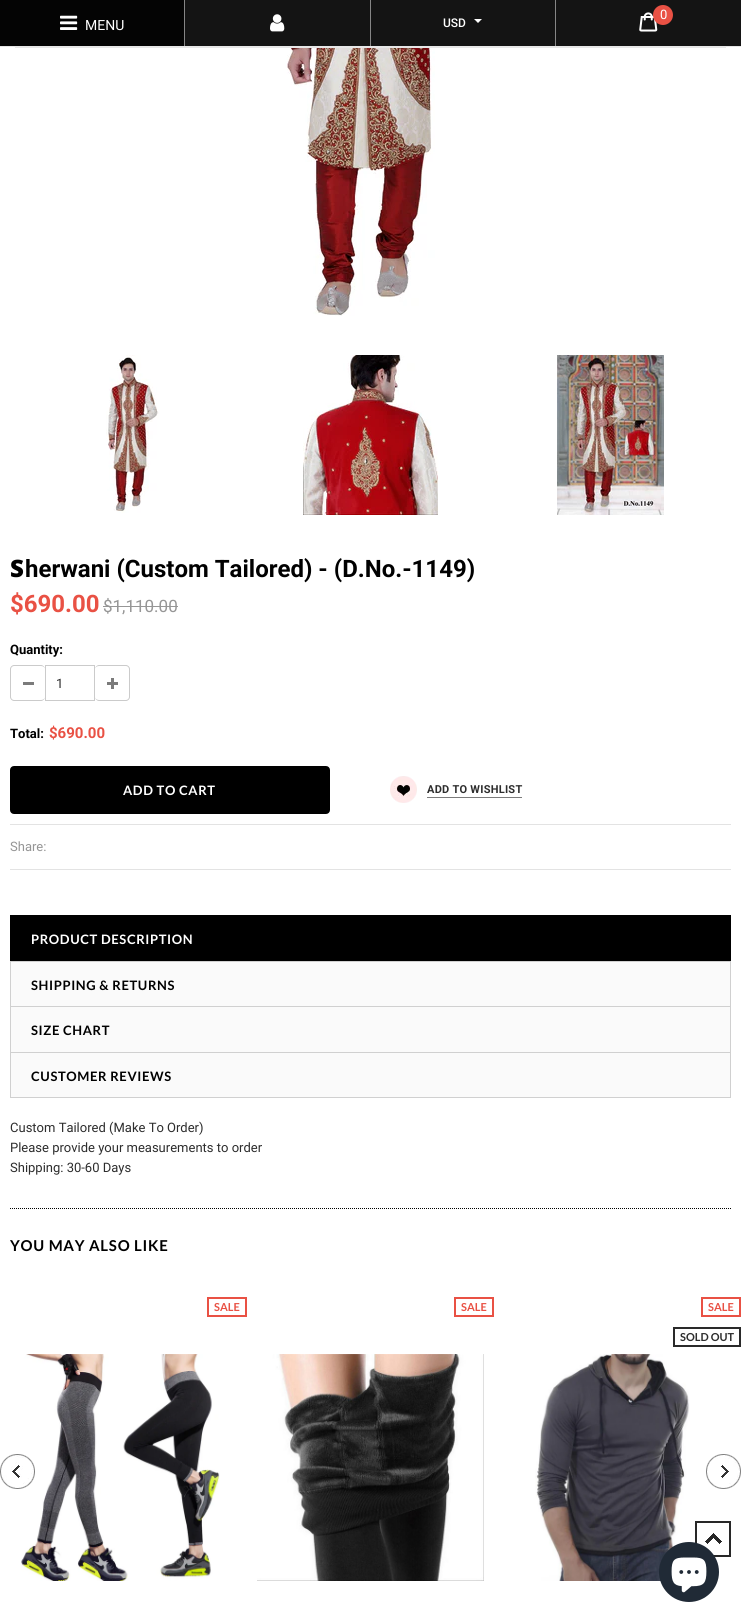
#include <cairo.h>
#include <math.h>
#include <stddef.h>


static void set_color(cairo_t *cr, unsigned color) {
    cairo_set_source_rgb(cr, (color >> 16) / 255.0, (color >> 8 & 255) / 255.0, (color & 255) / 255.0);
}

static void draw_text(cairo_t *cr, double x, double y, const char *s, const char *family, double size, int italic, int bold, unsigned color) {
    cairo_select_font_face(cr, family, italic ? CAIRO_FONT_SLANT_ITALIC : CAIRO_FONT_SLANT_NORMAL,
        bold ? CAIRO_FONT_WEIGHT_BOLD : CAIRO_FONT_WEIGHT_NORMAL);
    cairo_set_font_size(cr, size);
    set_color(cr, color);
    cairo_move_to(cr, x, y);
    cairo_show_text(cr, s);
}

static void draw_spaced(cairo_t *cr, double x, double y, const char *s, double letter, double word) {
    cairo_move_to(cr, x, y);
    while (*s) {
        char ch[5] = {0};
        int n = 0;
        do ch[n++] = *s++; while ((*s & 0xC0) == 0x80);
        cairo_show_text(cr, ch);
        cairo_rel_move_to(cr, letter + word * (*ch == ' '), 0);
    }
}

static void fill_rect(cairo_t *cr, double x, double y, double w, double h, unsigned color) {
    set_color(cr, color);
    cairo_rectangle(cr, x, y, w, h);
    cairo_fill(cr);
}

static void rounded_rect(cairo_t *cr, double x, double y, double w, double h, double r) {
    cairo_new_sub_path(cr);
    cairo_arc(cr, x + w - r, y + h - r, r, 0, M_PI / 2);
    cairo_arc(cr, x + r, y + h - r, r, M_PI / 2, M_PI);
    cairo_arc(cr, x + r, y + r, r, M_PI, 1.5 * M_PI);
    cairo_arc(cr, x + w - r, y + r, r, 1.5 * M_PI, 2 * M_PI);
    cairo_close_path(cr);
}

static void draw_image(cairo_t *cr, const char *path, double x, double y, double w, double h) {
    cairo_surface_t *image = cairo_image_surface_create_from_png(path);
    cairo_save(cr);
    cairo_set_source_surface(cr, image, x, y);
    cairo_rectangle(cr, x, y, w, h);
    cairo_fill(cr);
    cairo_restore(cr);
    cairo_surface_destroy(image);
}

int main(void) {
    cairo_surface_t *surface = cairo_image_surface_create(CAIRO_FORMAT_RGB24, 741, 1623);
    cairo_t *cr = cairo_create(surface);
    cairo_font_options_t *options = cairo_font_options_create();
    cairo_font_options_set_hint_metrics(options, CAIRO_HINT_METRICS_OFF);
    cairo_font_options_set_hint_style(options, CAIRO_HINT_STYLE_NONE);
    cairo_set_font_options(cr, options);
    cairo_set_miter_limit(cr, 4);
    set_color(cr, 0xFFFFFF);
    cairo_paint(cr);
    fill_rect(cr, 556, 0, 185, 46, 0x141414);
    draw_image(cr, "assets/img1.png", 639, 12, 19, 20);
    set_color(cr, 0xE95144);
    cairo_arc(cr, 663, 15, 10, 0, 2 * M_PI);
    cairo_fill(cr);
    draw_text(cr, 660, 19, "0", "Roboto", 13, 0, 0, 0xFFFFFF);
    fill_rect(cr, 185, 0, 185, 46, 0x141414);
    fill_rect(cr, 0, 0, 184, 46, 0x040404);
    fill_rect(cr, 184, 0, 1, 46, 0x868686);
    draw_image(cr, "assets/img2.png", 60, 15, 18, 15);
    draw_text(cr, 85, 30, "MENU", "Roboto", 14, 0, 0, 0xFFFFFF);
    fill_rect(cr, 370, 0, 1, 46, 0x868686);
    draw_image(cr, "assets/img3.png", 270, 14, 15, 18);
    fill_rect(cr, 0, 46, 741, 1, 0xE7E7E7);
    fill_rect(cr, 15, 47, 711, 1, 0xE7E7E7);
    fill_rect(cr, 371, 0, 184, 46, 0x141414);
    fill_rect(cr, 555, 0, 1, 46, 0x868686);
    draw_text(cr, 443, 27, "USD", "Roboto Medium", 12, 0, 0, 0xFFFFFF);
    cairo_new_path(cr);
    cairo_move_to(cr, 474, 19);
    cairo_line_to(cr, 482, 19);
    cairo_line_to(cr, 478, 23);
    cairo_close_path(cr);
    cairo_fill(cr);
    draw_image(cr, "assets/img4.png", 285, 48, 150, 268);
    draw_image(cr, "assets/img5.png", 106, 355, 53, 158);
    draw_image(cr, "assets/img6.png", 303, 355, 135, 160);
    draw_image(cr, "assets/img7.png", 557, 355, 107, 160);
    draw_text(cr, 10, 577, "S", "Noto Sans Black", 24, 0, 0, 0x000000);
    draw_text(cr, 25, 577, "herwani (Custom Tailored) - (D.No.-1149)", "Roboto", 24, 0, 1, 0x000000);
    draw_text(cr, 10, 612, "$690.00", "Roboto", 24, 0, 1, 0xE95144);
    draw_text(cr, 103, 612, "$1,110.00", "Roboto", 17, 0, 0, 0x969696);
    fill_rect(cr, 103, 606, 75, 1, 0x969696);
    draw_text(cr, 10, 654, "Quantity:", "Roboto", 13, 0, 1, 0x000000);
    fill_rect(cr, 23, 682, 11, 3, 0x7B7B7B);
    set_color(cr, 0xCBCBCB);
    cairo_set_fill_rule(cr, CAIRO_FILL_RULE_EVEN_ODD);
    cairo_new_path(cr);
    cairo_move_to(cr, 14, 665);
    cairo_line_to(cr, 41, 665);
    cairo_curve_to(cr, 43, 665, 45, 667, 45, 669);
    cairo_line_to(cr, 45, 697);
    cairo_curve_to(cr, 45, 699, 43, 701, 41, 701);
    cairo_line_to(cr, 14, 701);
    cairo_curve_to(cr, 12, 701, 10, 699, 10, 697);
    cairo_line_to(cr, 10, 669);
    cairo_curve_to(cr, 10, 667, 12, 665, 14, 665);
    cairo_close_path(cr);
    cairo_move_to(cr, 14, 666);
    cairo_line_to(cr, 41, 666);
    cairo_curve_to(cr, 43, 666, 45, 667.5, 45, 669);
    cairo_line_to(cr, 45, 697);
    cairo_curve_to(cr, 45, 698.5, 43, 700, 41, 700);
    cairo_line_to(cr, 14, 700);
    cairo_curve_to(cr, 12.5, 700, 11, 698.5, 11, 697);
    cairo_line_to(cr, 11, 669);
    cairo_curve_to(cr, 11, 667.5, 12.5, 666, 14, 666);
    cairo_close_path(cr);
    cairo_fill(cr);
    cairo_rectangle(cr, 45.5, 665.5, 49, 35);
    cairo_set_line_width(cr, 1);
    cairo_stroke(cr);
    draw_text(cr, 56, 688, "1", "Roboto", 13, 0, 0, 0x2D2D2D);
    draw_image(cr, "assets/img8.png", 107, 678, 11, 11);
    set_color(cr, 0xCBCBCB);
    cairo_new_path(cr);
    cairo_move_to(cr, 99, 665);
    cairo_line_to(cr, 126, 665);
    cairo_curve_to(cr, 128, 665, 130, 667, 130, 669);
    cairo_line_to(cr, 130, 697);
    cairo_curve_to(cr, 130, 699, 128, 701, 126, 701);
    cairo_line_to(cr, 99, 701);
    cairo_curve_to(cr, 97, 701, 95, 699, 95, 697);
    cairo_line_to(cr, 95, 669);
    cairo_curve_to(cr, 95, 667, 97, 665, 99, 665);
    cairo_close_path(cr);
    cairo_move_to(cr, 99, 666);
    cairo_line_to(cr, 126, 666);
    cairo_curve_to(cr, 127.5, 666, 129, 667.5, 129, 669);
    cairo_line_to(cr, 129, 697);
    cairo_curve_to(cr, 129, 698.5, 127.5, 700, 126, 700);
    cairo_line_to(cr, 99, 700);
    cairo_curve_to(cr, 97, 700, 95, 698.5, 95, 697);
    cairo_line_to(cr, 95, 669);
    cairo_curve_to(cr, 95, 667.5, 97, 666, 99, 666);
    cairo_close_path(cr);
    cairo_fill(cr);
    draw_text(cr, 10, 738, "Total:", "Roboto", 13, 0, 1, 0x000000);
    draw_text(cr, 49, 738, "$690.00", "Roboto", 15, 0, 1, 0xE95144);
    set_color(cr, 0x000000);
    rounded_rect(cr, 11, 767, 318, 46, 3);
    cairo_fill_preserve(cr);
    cairo_set_line_width(cr, 2);
    cairo_stroke(cr);
    cairo_select_font_face(cr, "Lato", CAIRO_FONT_SLANT_NORMAL, CAIRO_FONT_WEIGHT_BOLD);
    cairo_set_font_size(cr, 13);
    set_color(cr, 0xFFFFFF);
    draw_spaced(cr, 123, 795, "ADD TO CART", 0.6, 0);
    draw_image(cr, "assets/img9.png", 390, 776, 27, 27);
    fill_rect(cr, 427, 797, 95, 1, 0x7B7B7B);
    cairo_select_font_face(cr, "Roboto", CAIRO_FONT_SLANT_NORMAL, CAIRO_FONT_WEIGHT_BOLD);
    cairo_set_font_size(cr, 11);
    set_color(cr, 0x2D2D2D);
    draw_spaced(cr, 427, 793, "ADD TO WISHLIST", 0.25, 0);
    fill_rect(cr, 10, 824, 721, 1, 0xE3E3E3);
    fill_rect(cr, 10, 869, 721, 1, 0xE3E3E3);
    draw_text(cr, 10, 851, "Share:", "Roboto", 13, 0, 0, 0x969696);
    fill_rect(cr, 10, 1097, 721, 1, 0xD0D0D0);
    fill_rect(cr, 10, 915, 721, 46, 0x000000);
    cairo_select_font_face(cr, "Lato", CAIRO_FONT_SLANT_NORMAL, CAIRO_FONT_WEIGHT_BOLD);
    set_color(cr, 0xFFFFFF);
    draw_spaced(cr, 31, 944, "PRODUCT DESCRIPTION", 0.6, 0);
    fill_rect(cr, 11, 962, 719, 44, 0xFAFAFA);
    fill_rect(cr, 10, 961, 721, 1, 0xD0D0D0);
    fill_rect(cr, 730, 961, 1, 45, 0xD0D0D0);
    fill_rect(cr, 10, 961, 1, 45, 0xD0D0D0);
    set_color(cr, 0x000000);
    draw_spaced(cr, 31, 990, "SHIPPING & RETURNS", 0.6, 0);
    fill_rect(cr, 11, 1007, 719, 45, 0xFAFAFA);
    fill_rect(cr, 10, 1006, 721, 1, 0xD0D0D0);
    fill_rect(cr, 730, 1006, 1, 46, 0xD0D0D0);
    fill_rect(cr, 10, 1006, 1, 46, 0xD0D0D0);
    set_color(cr, 0x000000);
    draw_spaced(cr, 31, 1035, "SIZE CHART", 0.6, 0);
    fill_rect(cr, 11, 1053, 719, 44, 0xFAFAFA);
    fill_rect(cr, 10, 1052, 721, 1, 0xD0D0D0);
    fill_rect(cr, 730, 1052, 1, 45, 0xD0D0D0);
    fill_rect(cr, 10, 1052, 1, 45, 0xD0D0D0);
    set_color(cr, 0x000000);
    draw_spaced(cr, 31, 1081, "CUSTOMER REVIEWS", 0.6, 0);
    draw_text(cr, 10, 1132, "Custom Tailored (Make To Order)", "Roboto", 13, 0, 0, 0x2D2D2D);
    draw_text(cr, 10, 1152, "Please provide your measurements to order", "Roboto", 13, 0, 0, 0x2D2D2D);
    draw_text(cr, 10, 1172, "Shipping: 30-60 Days", "Roboto", 13, 0, 0, 0x2D2D2D);
    cairo_new_path(cr);
    cairo_move_to(cr, 10, 1208.5);
    cairo_line_to(cr, 731, 1208.5);
    set_color(cr, 0x000000);
    cairo_set_line_width(cr, 1);
    cairo_set_dash(cr, (double[]){1, 1}, 2, 0);
    cairo_stroke(cr);
    cairo_select_font_face(cr, "Lato", CAIRO_FONT_SLANT_NORMAL, CAIRO_FONT_WEIGHT_BOLD);
    cairo_set_font_size(cr, 15);
    draw_spaced(cr, 10, 1251, "YOU MAY ALSO LIKE", 0.75, 0);
    cairo_rectangle(cr, 208, 1298, 38, 18);
    set_color(cr, 0xE95144);
    cairo_set_line_width(cr, 2);
    cairo_set_dash(cr, NULL, 0, 0);
    cairo_stroke(cr);
    draw_text(cr, 214, 1311, "SALE", "Lato", 11, 0, 1, 0xE95144);
    draw_image(cr, "assets/img10.png", 21, 1354, 199, 227);
    cairo_rectangle(cr, 455, 1298, 38, 18);
    cairo_stroke(cr);
    draw_text(cr, 461, 1311, "SALE", "Lato", 11, 0, 1, 0xE95144);
    draw_image(cr, "assets/img11.png", 257, 1354, 227, 227);
    cairo_rectangle(cr, 702, 1298, 38, 18);
    cairo_stroke(cr);
    draw_text(cr, 708, 1311, "SALE", "Lato", 11, 0, 1, 0xE95144);
    cairo_rectangle(cr, 674, 1328, 66, 18);
    set_color(cr, 0x2A2A2A);
    cairo_stroke(cr);
    draw_text(cr, 680, 1341, "SOLD OUT", "Lato", 11, 0, 1, 0x2D2D2D);
    draw_image(cr, "assets/img12.png", 535, 1354, 155, 227);
    draw_image(cr, "assets/img13.png", 0, 1454, 35, 35);
    draw_image(cr, "assets/img14.png", 706, 1454, 35, 35);
    draw_image(cr, "assets/img15.png", 695, 1521, 36, 36);
    set_color(cr, 0x202A36);
    cairo_arc(cr, 689, 1572, 30, 0, 2 * M_PI);
    cairo_fill(cr);
    draw_image(cr, "assets/img16.png", 671, 1557, 36, 36);
    cairo_surface_write_to_png(surface, "output.png");
    cairo_font_options_destroy(options);
    cairo_destroy(cr);
    cairo_surface_destroy(surface);
    return 0;
}
